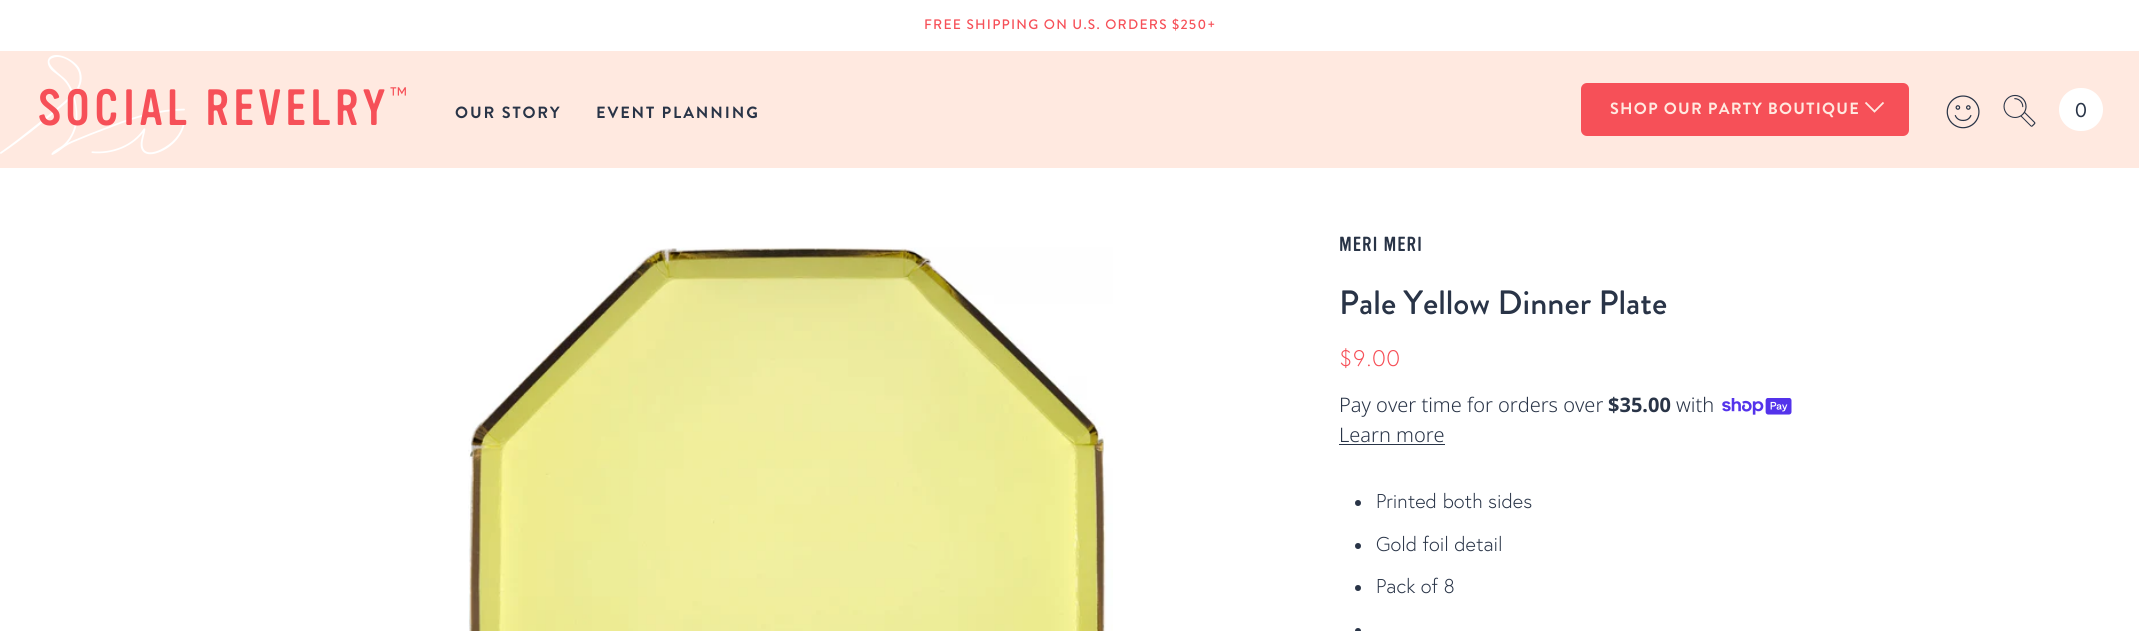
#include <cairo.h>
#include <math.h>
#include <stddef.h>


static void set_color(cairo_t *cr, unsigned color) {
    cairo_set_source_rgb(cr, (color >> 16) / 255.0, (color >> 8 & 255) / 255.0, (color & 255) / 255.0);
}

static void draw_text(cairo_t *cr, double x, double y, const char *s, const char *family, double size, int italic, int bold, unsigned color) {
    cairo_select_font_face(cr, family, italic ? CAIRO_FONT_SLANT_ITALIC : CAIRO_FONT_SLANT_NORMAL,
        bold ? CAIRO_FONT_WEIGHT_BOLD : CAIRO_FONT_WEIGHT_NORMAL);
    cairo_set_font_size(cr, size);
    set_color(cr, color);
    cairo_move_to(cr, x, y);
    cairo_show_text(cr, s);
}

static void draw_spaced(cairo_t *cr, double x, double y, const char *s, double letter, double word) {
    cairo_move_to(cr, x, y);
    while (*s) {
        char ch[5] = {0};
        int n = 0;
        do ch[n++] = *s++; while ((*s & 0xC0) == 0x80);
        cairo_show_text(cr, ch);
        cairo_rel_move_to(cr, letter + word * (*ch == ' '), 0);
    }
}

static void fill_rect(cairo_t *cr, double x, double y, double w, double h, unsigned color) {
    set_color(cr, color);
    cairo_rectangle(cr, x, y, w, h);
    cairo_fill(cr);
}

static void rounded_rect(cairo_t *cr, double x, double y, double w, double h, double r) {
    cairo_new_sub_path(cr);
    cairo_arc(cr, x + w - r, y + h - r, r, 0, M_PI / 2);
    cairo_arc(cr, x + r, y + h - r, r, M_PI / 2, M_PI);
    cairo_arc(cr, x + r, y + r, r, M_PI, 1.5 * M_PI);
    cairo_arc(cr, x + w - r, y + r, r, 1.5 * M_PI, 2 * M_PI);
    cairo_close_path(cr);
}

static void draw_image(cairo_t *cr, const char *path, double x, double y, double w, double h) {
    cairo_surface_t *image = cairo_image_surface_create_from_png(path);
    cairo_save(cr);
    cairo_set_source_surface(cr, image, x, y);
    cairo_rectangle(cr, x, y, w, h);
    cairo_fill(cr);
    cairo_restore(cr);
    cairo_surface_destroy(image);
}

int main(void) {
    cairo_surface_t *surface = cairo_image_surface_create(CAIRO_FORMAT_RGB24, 2139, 631);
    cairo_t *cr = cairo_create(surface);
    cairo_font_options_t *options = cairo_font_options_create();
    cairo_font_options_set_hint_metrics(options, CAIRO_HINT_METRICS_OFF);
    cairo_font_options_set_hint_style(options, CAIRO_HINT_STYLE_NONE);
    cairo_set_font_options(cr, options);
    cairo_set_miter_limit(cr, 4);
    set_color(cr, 0xFFFFFF);
    cairo_paint(cr);
    cairo_select_font_face(cr, "Brandon Grotesque Medium", CAIRO_FONT_SLANT_NORMAL, CAIRO_FONT_WEIGHT_NORMAL);
    cairo_set_font_size(cr, 13.75);
    set_color(cr, 0xF65058);
    draw_spaced(cr, 924, 29, "FREE SHIPPING ON U.S. ORDERS $250+", 1.25, 0);
    fill_rect(cr, 0, 51, 2139, 117, 0xFFE9E0);
    draw_image(cr, "assets/img1.png", 0, 55, 185, 100);
    cairo_select_font_face(cr, "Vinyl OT", CAIRO_FONT_SLANT_NORMAL, CAIRO_FONT_WEIGHT_NORMAL);
    cairo_set_font_size(cr, 50);
    set_color(cr, 0xF65058);
    draw_spaced(cr, 38, 125, "SOCIAL REVELRY", 4.4, 0);
    draw_text(cr, 390, 103, "™", "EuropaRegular", 22.5, 0, 0, 0xF65058);
    cairo_select_font_face(cr, "Brandon Grotesque", CAIRO_FONT_SLANT_NORMAL, CAIRO_FONT_WEIGHT_BOLD);
    cairo_set_font_size(cr, 16.25);
    set_color(cr, 0x293447);
    draw_spaced(cr, 455, 118, "OUR STORY", 1.9, 0);
    draw_spaced(cr, 596, 118, "EVENT PLANNING", 1.9, 0);
    set_color(cr, 0xF65058);
    rounded_rect(cr, 1581, 83, 328, 53, 6);
    cairo_fill(cr);
    set_color(cr, 0xFFE9E0);
    draw_spaced(cr, 1610, 114, "SHOP OUR PARTY BOUTIQUE", 1.25, 0);
    cairo_new_path(cr);
    cairo_move_to(cr, 1865.5, 102.5);
    cairo_line_to(cr, 1874.5, 111.5);
    cairo_line_to(cr, 1883.5, 102.5);
    cairo_set_line_width(cr, 1.8);
    cairo_stroke(cr);
    draw_image(cr, "assets/img2.png", 1946, 95, 34, 34);
    draw_image(cr, "assets/img3.png", 2003, 94, 33, 33);
    set_color(cr, 0xFFFFFF);
    rounded_rect(cr, 2059, 88, 44, 43, 21.5);
    cairo_fill(cr);
    draw_text(cr, 2075, 117, "0", "EuropaRegular", 20, 0, 0, 0x293447);
    draw_image(cr, "assets/img4.png", 468, 247, 645, 384);
    cairo_select_font_face(cr, "Vinyl OT", CAIRO_FONT_SLANT_NORMAL, CAIRO_FONT_WEIGHT_NORMAL);
    draw_spaced(cr, 1339, 251, "MERI MERI", 1, 0);
    draw_text(cr, 1339, 314, "Pale Yellow Dinner Plate", "Brandon Grotesque Medium", 33.75, 0, 0, 0x293447);
    cairo_select_font_face(cr, "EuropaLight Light", CAIRO_FONT_SLANT_NORMAL, CAIRO_FONT_WEIGHT_NORMAL);
    cairo_set_font_size(cr, 22.5);
    set_color(cr, 0xF65058);
    draw_spaced(cr, 1339, 366, "$9.00", 1, 0);
    draw_text(cr, 1339, 412, "Pay over time for orders over", "Noto Sans Light", 20, 0, 0, 0x293447);
    draw_text(cr, 1608, 412, "$35.00", "Noto Sans", 20, 0, 1, 0x293447);
    draw_text(cr, 1676, 412, "with", "Noto Sans Light", 20, 0, 0, 0x293447);
    draw_image(cr, "assets/img5.png", 1722, 398, 70, 17);
    draw_text(cr, 1339, 442, "Learn more", "Noto Sans Light", 20, 0, 0, 0x293447);
    fill_rect(cr, 1339, 444, 106, 1, 0x293447);
    cairo_new_path(cr);
    cairo_arc(cr, 1358, 503, 3, 0, 2 * M_PI);
    cairo_fill(cr);
    draw_text(cr, 1376, 508, "Printed both sides", "EuropaLight Light", 20, 0, 0, 0x293447);
    cairo_new_path(cr);
    cairo_arc(cr, 1358, 546, 3, 0, 2 * M_PI);
    cairo_fill(cr);
    draw_text(cr, 1376, 551, "Gold foil detail", "EuropaLight Light", 20, 0, 0, 0x293447);
    cairo_new_path(cr);
    cairo_arc(cr, 1358, 588, 3, 0, 2 * M_PI);
    cairo_fill(cr);
    draw_text(cr, 1376, 593, "Pack of 8", "EuropaLight Light", 20, 0, 0, 0x293447);
    cairo_new_path(cr);
    cairo_arc(cr, 1358, 631, 3, 0, 2 * M_PI);
    cairo_fill(cr);
    cairo_surface_write_to_png(surface, "output.png");
    cairo_font_options_destroy(options);
    cairo_destroy(cr);
    cairo_surface_destroy(surface);
    return 0;
}
